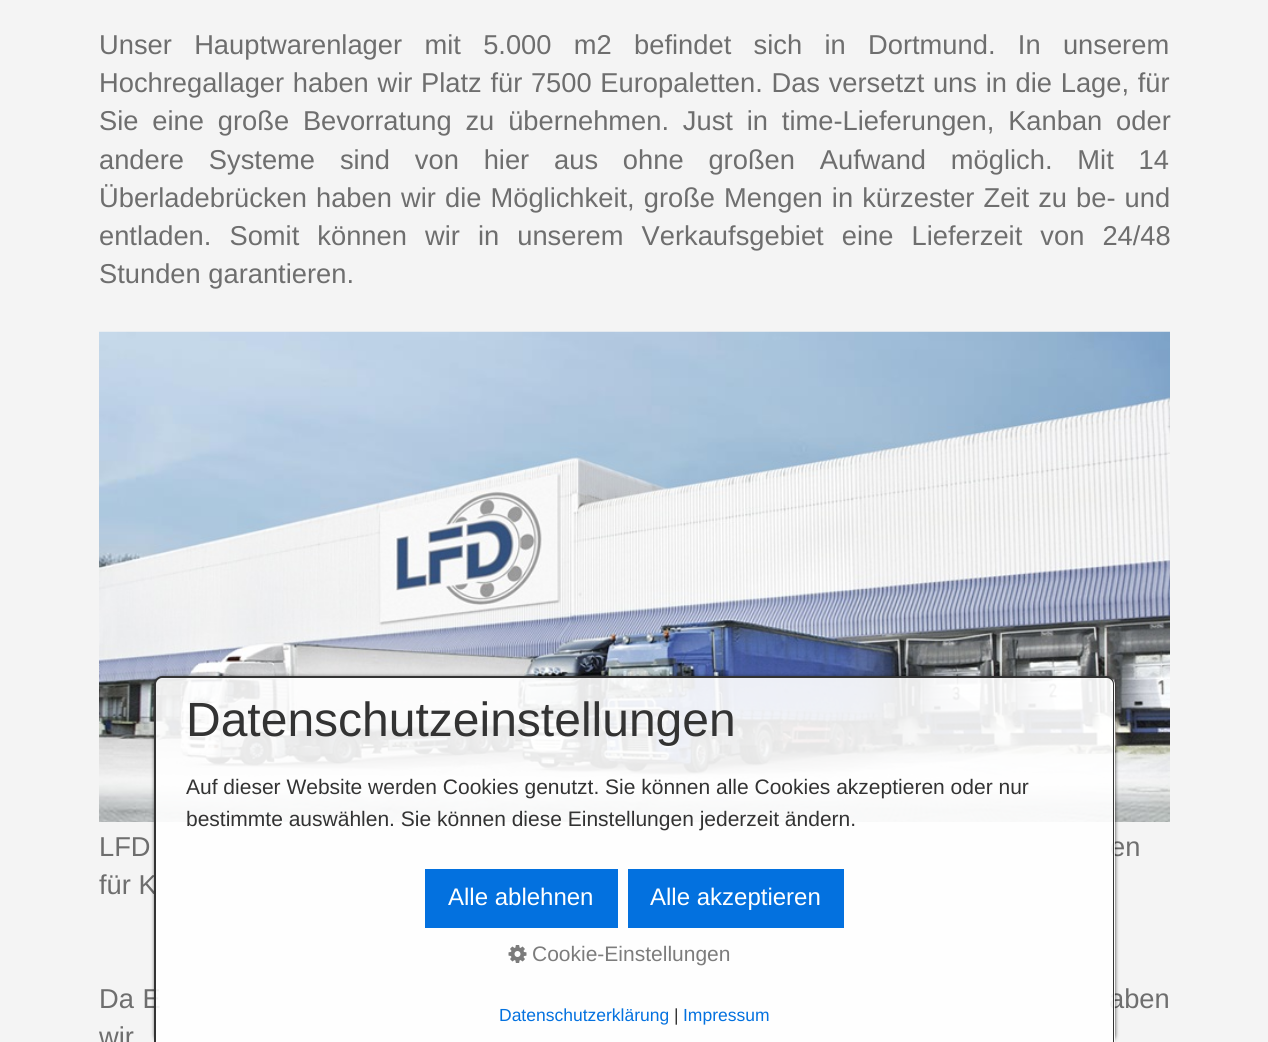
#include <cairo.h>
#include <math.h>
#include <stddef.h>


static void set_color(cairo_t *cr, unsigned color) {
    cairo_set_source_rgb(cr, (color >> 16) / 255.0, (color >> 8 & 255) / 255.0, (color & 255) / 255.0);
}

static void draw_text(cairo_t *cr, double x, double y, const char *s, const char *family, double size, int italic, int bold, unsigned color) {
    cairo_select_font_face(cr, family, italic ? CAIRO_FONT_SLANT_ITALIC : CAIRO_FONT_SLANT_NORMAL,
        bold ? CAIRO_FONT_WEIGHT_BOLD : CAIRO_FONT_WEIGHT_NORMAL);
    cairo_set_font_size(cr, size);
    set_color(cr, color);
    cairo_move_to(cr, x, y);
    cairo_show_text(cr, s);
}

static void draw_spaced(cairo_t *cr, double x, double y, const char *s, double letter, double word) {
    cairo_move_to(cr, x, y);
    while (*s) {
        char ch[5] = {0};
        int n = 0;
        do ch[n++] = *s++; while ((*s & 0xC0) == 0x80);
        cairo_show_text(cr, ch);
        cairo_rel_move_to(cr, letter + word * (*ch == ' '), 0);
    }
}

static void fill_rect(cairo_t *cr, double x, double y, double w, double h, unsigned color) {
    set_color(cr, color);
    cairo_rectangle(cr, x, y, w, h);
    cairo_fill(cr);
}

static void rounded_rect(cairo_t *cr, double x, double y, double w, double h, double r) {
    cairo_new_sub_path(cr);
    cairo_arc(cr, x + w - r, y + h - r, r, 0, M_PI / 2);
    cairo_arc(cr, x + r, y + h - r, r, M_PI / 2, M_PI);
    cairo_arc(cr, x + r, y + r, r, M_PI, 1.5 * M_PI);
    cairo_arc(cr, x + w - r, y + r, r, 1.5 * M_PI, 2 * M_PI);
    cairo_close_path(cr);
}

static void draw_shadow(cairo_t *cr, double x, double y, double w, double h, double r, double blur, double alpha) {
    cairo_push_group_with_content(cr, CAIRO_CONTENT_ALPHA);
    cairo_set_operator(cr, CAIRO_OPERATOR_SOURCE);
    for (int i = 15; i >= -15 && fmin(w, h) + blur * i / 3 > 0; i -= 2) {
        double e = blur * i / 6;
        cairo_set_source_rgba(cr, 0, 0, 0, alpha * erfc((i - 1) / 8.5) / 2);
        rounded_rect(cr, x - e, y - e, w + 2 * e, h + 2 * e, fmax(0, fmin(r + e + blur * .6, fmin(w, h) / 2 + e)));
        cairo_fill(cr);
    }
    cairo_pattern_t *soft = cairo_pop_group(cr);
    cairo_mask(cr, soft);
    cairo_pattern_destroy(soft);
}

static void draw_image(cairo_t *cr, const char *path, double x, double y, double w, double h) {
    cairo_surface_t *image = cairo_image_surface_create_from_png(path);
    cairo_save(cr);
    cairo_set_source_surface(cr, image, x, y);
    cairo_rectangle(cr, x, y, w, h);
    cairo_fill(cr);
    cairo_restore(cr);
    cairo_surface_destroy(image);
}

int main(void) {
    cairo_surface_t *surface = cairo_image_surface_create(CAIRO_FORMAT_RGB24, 1268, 1042);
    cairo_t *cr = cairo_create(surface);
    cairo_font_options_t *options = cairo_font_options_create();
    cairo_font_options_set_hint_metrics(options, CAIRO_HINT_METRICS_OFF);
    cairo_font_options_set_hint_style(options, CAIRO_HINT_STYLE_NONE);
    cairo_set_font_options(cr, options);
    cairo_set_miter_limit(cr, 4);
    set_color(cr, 0xF4F4F4);
    cairo_paint(cr);
    cairo_select_font_face(cr, "Liberation Sans", CAIRO_FONT_SLANT_NORMAL, CAIRO_FONT_WEIGHT_NORMAL);
    cairo_set_font_size(cr, 27.3);
    set_color(cr, 0x6E6E6E);
    draw_spaced(cr, 99, 54, "Unser Hauptwarenlager mit 5.000 m2 befindet sich in Dortmund. In unserem", 0, 14.75);
    draw_spaced(cr, 99, 92, "Hochregallager haben wir Platz für 7500 Europaletten. Das versetzt uns in die Lage, für", 0, 1.1);
    draw_spaced(cr, 99, 130, "Sie eine große Bevorratung zu übernehmen. Just in time-Lieferungen, Kanban oder", 0, 6.25);
    draw_spaced(cr, 99, 169, "andere Systeme sind von hier aus ohne großen Aufwand möglich. Mit 14", 0, 17.25);
    draw_spaced(cr, 99, 207, "Überladebrücken haben wir die Möglichkeit, große Mengen in kürzester Zeit zu be- und", 0, 1.5);
    draw_spaced(cr, 99, 245, "entladen. Somit können wir in unserem Verkaufsgebiet eine Lieferzeit von 24/48", 0, 10.5);
    draw_text(cr, 99, 283, "Stunden garantieren.", "Liberation Sans", 27.3, 0, 0, 0x6E6E6E);
    draw_image(cr, "assets/img1.png", 99, 331, 1071, 491);
    draw_text(cr, 99, 856, "LFD", "Liberation Sans", 27.3, 0, 0, 0x6E6E6E);
    draw_text(cr, 1110, 856, "en", "Liberation Sans", 27.3, 0, 0, 0x6E6E6E);
    draw_text(cr, 99, 894, "für K", "Liberation Sans", 27.3, 0, 0, 0x6E6E6E);
    draw_spaced(cr, 99, 1008, "Da E", 0, 1);
    draw_spaced(cr, 1109, 1008, "aben", 0, 1);
    draw_spaced(cr, 99, 1046, "wir", 0, 22);
    cairo_save(cr);
    cairo_set_fill_rule(cr, CAIRO_FILL_RULE_EVEN_ODD);
    cairo_new_path(cr);
    cairo_move_to(cr, 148, 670);
    cairo_line_to(cr, 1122, 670);
    cairo_line_to(cr, 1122, 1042);
    cairo_line_to(cr, 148, 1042);
    cairo_close_path(cr);
    cairo_move_to(cr, 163, 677);
    cairo_line_to(cr, 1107, 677);
    cairo_curve_to(cr, 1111.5, 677, 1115, 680.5, 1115, 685);
    cairo_line_to(cr, 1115, 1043);
    cairo_line_to(cr, 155, 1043);
    cairo_line_to(cr, 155, 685);
    cairo_curve_to(cr, 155, 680.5, 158.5, 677, 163, 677);
    cairo_close_path(cr);
    cairo_clip(cr);
    set_color(cr, 0x000000);
    draw_shadow(cr, 155, 677, 960, 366, 8, 2, 0.8);
    cairo_restore(cr);
    cairo_set_source_rgba(cr, 1, 1, 1, 0.9);
    cairo_new_path(cr);
    cairo_move_to(cr, 163, 677);
    cairo_line_to(cr, 1107, 677);
    cairo_curve_to(cr, 1111.5, 677, 1115, 680.5, 1115, 685);
    cairo_line_to(cr, 1115, 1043);
    cairo_line_to(cr, 155, 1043);
    cairo_line_to(cr, 155, 685);
    cairo_curve_to(cr, 155, 680.5, 158.5, 677, 163, 677);
    cairo_close_path(cr);
    cairo_fill(cr);
    set_color(cr, 0x333333);
    cairo_set_fill_rule(cr, CAIRO_FILL_RULE_EVEN_ODD);
    cairo_new_path(cr);
    cairo_move_to(cr, 162, 676);
    cairo_line_to(cr, 1107, 676);
    cairo_curve_to(cr, 1111, 676, 1114, 680, 1114, 684);
    cairo_line_to(cr, 1114, 1042);
    cairo_line_to(cr, 154, 1042);
    cairo_line_to(cr, 154, 684);
    cairo_curve_to(cr, 154, 680, 158, 676, 162, 676);
    cairo_close_path(cr);
    cairo_move_to(cr, 162, 678);
    cairo_line_to(cr, 1107, 678);
    cairo_curve_to(cr, 1110, 678, 1113, 681, 1113, 684);
    cairo_line_to(cr, 1113, 1042);
    cairo_line_to(cr, 156, 1042);
    cairo_line_to(cr, 156, 684);
    cairo_curve_to(cr, 156, 681, 159, 678, 162, 678);
    cairo_close_path(cr);
    cairo_fill(cr);
    draw_text(cr, 186, 736, "Datenschutzeinstellungen", "Liberation Sans", 48, 0, 0, 0x333333);
    draw_text(cr, 186, 794, "Auf dieser Website werden Cookies genutzt. Sie können alle Cookies akzeptieren oder nur", "Liberation Sans", 21, 0, 0, 0x333333);
    draw_text(cr, 186, 826, "bestimmte auswählen. Sie können diese Einstellungen jederzeit ändern.", "Liberation Sans", 21, 0, 0, 0x333333);
    fill_rect(cr, 425, 869, 193, 59, 0x0371DF);
    draw_text(cr, 448, 905, "Alle ablehnen", "Liberation Sans", 24, 0, 0, 0xFFFFFF);
    fill_rect(cr, 628, 869, 216, 59, 0x0371DF);
    draw_text(cr, 650, 905, "Alle akzeptieren", "Liberation Sans", 24, 0, 0, 0xFFFFFF);
    draw_image(cr, "assets/img2.png", 508, 945, 19, 18);
    draw_text(cr, 532, 961, "Cookie-Einstellungen", "Liberation Sans", 21, 0, 0, 0x7C7C7C);
    draw_text(cr, 499, 1021, "Datenschutzerklärung", "Liberation Sans", 17.5, 0, 0, 0x0371DF);
    draw_text(cr, 674, 1021, "|", "Liberation Sans", 17.5, 0, 0, 0x333333);
    draw_text(cr, 683, 1021, "Impressum", "Liberation Sans", 17.5, 0, 0, 0x0371DF);
    cairo_surface_write_to_png(surface, "output.png");
    cairo_font_options_destroy(options);
    cairo_destroy(cr);
    cairo_surface_destroy(surface);
    return 0;
}
